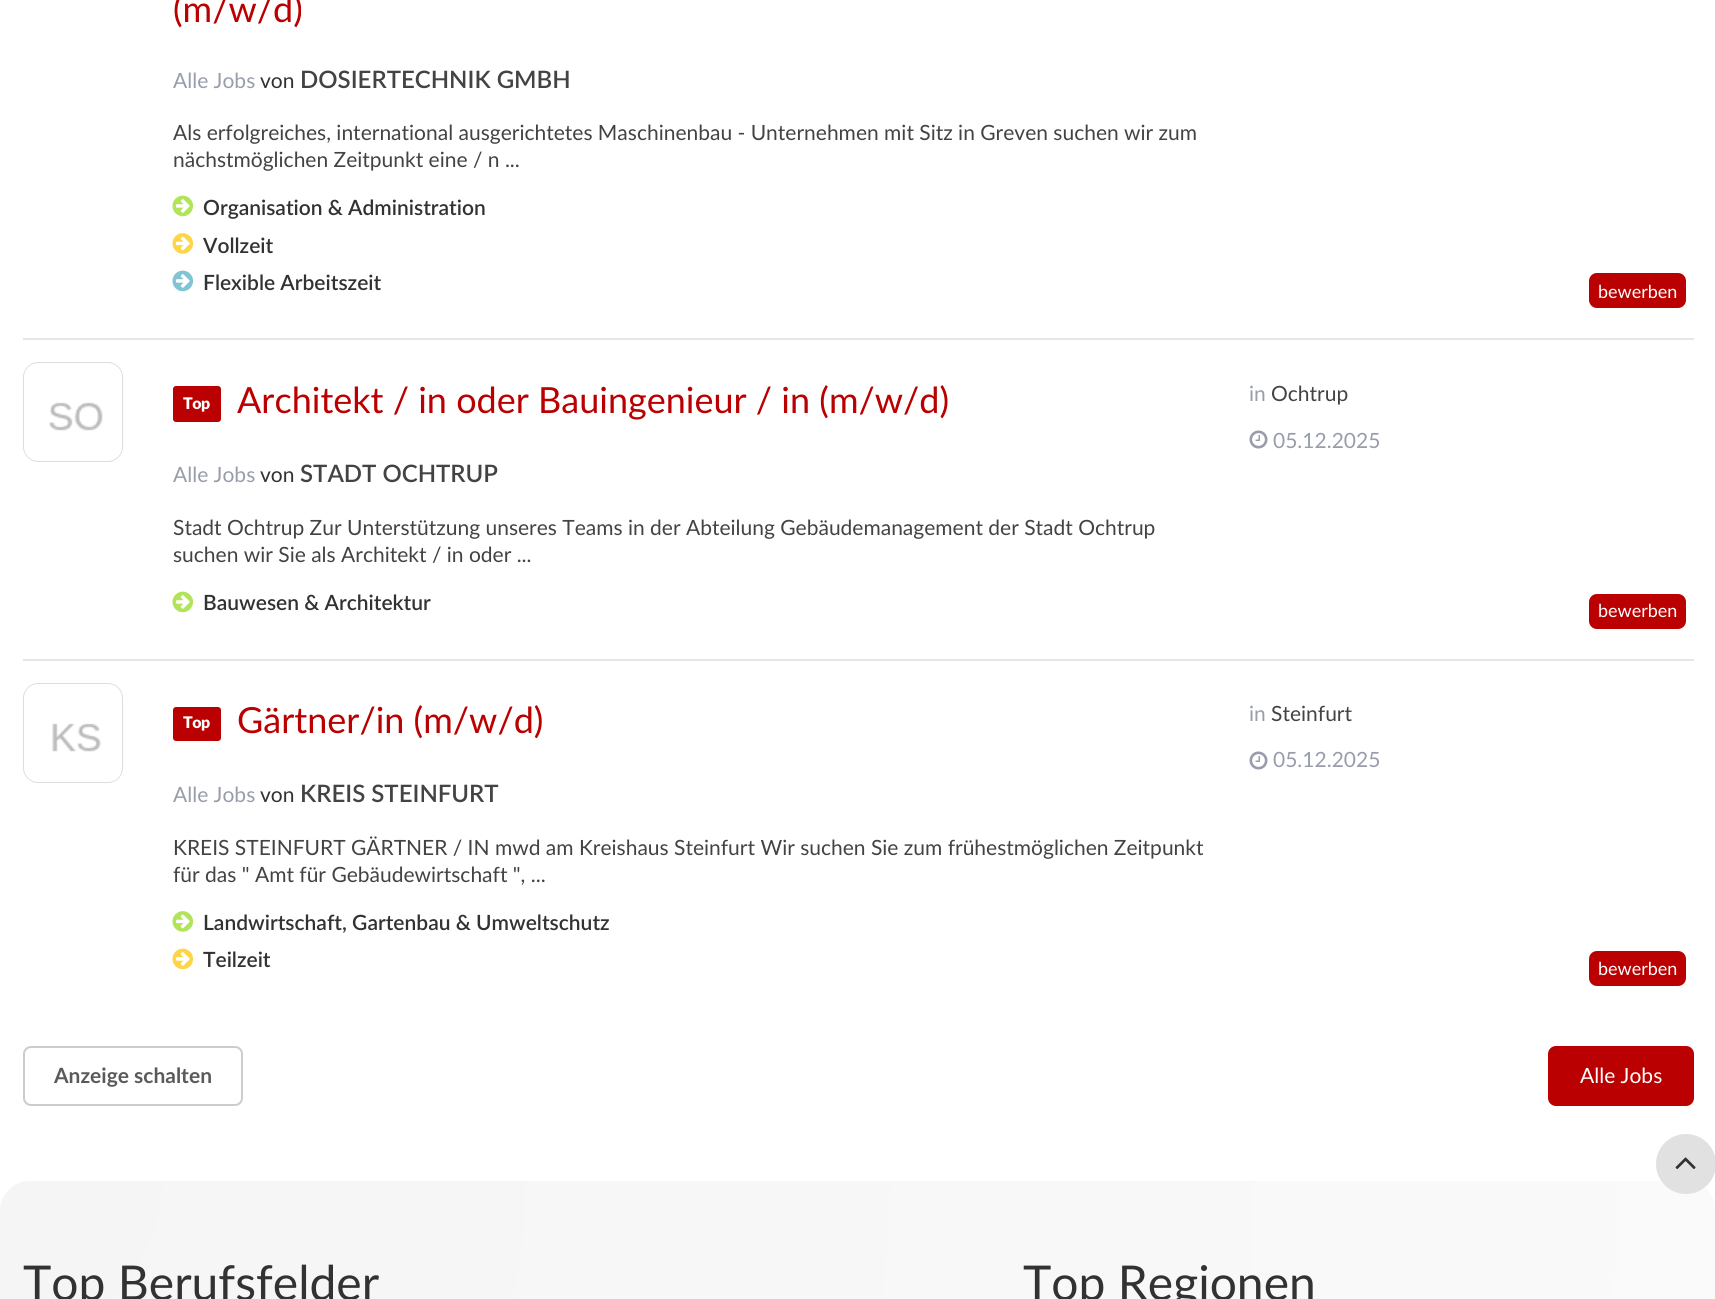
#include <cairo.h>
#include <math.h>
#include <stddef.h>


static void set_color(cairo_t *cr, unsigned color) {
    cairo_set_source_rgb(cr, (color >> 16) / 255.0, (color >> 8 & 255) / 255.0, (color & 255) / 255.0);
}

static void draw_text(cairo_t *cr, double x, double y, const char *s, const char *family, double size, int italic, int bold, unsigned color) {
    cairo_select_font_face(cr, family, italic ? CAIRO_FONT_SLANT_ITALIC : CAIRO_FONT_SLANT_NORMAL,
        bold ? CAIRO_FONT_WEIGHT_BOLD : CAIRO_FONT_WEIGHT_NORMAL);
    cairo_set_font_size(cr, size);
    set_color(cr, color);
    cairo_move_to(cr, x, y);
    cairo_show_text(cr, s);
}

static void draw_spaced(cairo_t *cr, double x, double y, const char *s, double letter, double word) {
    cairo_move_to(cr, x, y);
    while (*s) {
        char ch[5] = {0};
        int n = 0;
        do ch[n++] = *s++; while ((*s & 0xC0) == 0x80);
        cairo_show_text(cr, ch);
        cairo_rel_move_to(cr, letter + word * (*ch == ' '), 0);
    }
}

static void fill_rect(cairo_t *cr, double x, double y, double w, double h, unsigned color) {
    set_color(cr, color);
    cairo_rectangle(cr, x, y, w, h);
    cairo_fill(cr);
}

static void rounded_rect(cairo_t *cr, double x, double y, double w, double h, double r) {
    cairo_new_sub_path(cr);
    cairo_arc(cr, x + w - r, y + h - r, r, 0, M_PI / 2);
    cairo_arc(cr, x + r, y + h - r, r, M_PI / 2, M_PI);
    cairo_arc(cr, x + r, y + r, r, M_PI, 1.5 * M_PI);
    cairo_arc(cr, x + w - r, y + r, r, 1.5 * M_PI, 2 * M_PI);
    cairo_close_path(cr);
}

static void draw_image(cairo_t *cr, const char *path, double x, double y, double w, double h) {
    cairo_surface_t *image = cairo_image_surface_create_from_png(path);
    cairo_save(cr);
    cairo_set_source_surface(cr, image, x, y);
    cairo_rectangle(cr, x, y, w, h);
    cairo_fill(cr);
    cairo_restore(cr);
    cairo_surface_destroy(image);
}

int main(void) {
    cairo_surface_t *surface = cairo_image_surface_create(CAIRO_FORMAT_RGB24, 1715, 1299);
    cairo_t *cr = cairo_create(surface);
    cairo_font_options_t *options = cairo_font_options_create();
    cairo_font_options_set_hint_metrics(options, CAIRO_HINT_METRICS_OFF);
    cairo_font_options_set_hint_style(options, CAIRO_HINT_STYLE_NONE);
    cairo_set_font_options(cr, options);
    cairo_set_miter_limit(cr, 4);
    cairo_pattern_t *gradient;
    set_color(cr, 0xFFFFFF);
    cairo_paint(cr);
    fill_rect(cr, 23, 338, 1671, 2, 0xE6E6E6);
    draw_text(cr, 173, 22, "(m/w/d)", "Lato", 36, 0, 0, 0xBA0000);
    draw_text(cr, 173, 88, "Alle Jobs", "Lato", 21, 0, 0, 0x989DAC);
    draw_text(cr, 260, 88, "von", "Lato", 21, 0, 0, 0x323232);
    draw_text(cr, 300, 88, "DOSIERTECHNIK GMBH", "Lato SemiBold", 24, 0, 0, 0x434343);
    draw_text(cr, 173, 140, "Als erfolgreiches, international ausgerichtetes Maschinenbau - Unternehmen mit Sitz in Greven suchen wir zum", "Lato", 21, 0, 0, 0x434343);
    draw_text(cr, 173, 167, "nächstmöglichen Zeitpunkt eine / n ...", "Lato", 21, 0, 0, 0x434343);
    set_color(cr, 0xBA0000);
    rounded_rect(cr, 1589, 273, 97, 35, 8);
    cairo_fill(cr);
    draw_text(cr, 1598, 298, "bewerben", "Lato", 18, 0, 0, 0xFFFFFF);
    draw_image(cr, "assets/img1.png", 172, 195, 22, 22);
    draw_text(cr, 203, 215, "Organisation & Administration", "Lato SemiBold", 21, 0, 0, 0x323232);
    draw_image(cr, "assets/img2.png", 172, 233, 22, 21);
    draw_text(cr, 203, 253, "Vollzeit", "Lato SemiBold", 21, 0, 0, 0x323232);
    draw_image(cr, "assets/img3.png", 172, 270, 22, 22);
    draw_text(cr, 203, 290, "Flexible Arbeitszeit", "Lato SemiBold", 21, 0, 0, 0x323232);
    fill_rect(cr, 23, 659, 1671, 2, 0xE6E6E6);
    set_color(cr, 0xDDDDDD);
    cairo_new_path(cr);
    cairo_move_to(cr, 38, 362);
    cairo_curve_to(cr, 30, 362, 23, 369, 23, 377);
    cairo_line_to(cr, 23, 447);
    cairo_curve_to(cr, 23, 455, 30, 462, 38, 462);
    cairo_line_to(cr, 108, 462);
    cairo_curve_to(cr, 116, 462, 123, 455, 123, 447);
    cairo_line_to(cr, 123, 377);
    cairo_curve_to(cr, 123, 369, 116, 362, 108, 362);
    cairo_close_path(cr);
    cairo_fill(cr);
    set_color(cr, 0xFFFFFF);
    rounded_rect(cr, 24, 363, 98, 98, 14);
    cairo_fill(cr);
    draw_image(cr, "assets/img4.png", 49, 402, 54, 29);
    set_color(cr, 0xBA0000);
    rounded_rect(cr, 173, 386, 48, 36, 3);
    cairo_fill(cr);
    cairo_select_font_face(cr, "Lato ExtraBold", CAIRO_FONT_SLANT_NORMAL, CAIRO_FONT_WEIGHT_NORMAL);
    cairo_set_font_size(cr, 16);
    set_color(cr, 0xFFFFFF);
    draw_spaced(cr, 183, 409, "Top", -0.5, 0);
    draw_text(cr, 237, 413, "Architekt / in oder Bauingenieur / in (m/w/d)", "Lato", 36, 0, 0, 0xBA0000);
    draw_text(cr, 173, 482, "Alle Jobs", "Lato", 21, 0, 0, 0x989DAC);
    draw_text(cr, 260, 482, "von", "Lato", 21, 0, 0, 0x323232);
    draw_text(cr, 300, 482, "STADT OCHTRUP", "Lato SemiBold", 24, 0, 0, 0x434343);
    draw_text(cr, 173, 535, "Stadt Ochtrup Zur Unterstützung unseres Teams in der Abteilung Gebäudemanagement der Stadt Ochtrup", "Lato", 21, 0, 0, 0x434343);
    draw_text(cr, 173, 562, "suchen wir Sie als Architekt / in oder ...", "Lato", 21, 0, 0, 0x434343);
    draw_text(cr, 1249, 401, "in", "Lato", 21, 0, 0, 0x989DAC);
    draw_text(cr, 1271, 401, "Ochtrup", "Lato", 21, 0, 0, 0x434343);
    draw_image(cr, "assets/img5.png", 1249, 430, 19, 19);
    draw_text(cr, 1273, 448, "05.12.2025", "Lato", 21, 0, 0, 0x989DAC);
    set_color(cr, 0xBA0000);
    rounded_rect(cr, 1589, 594, 97, 35, 8);
    cairo_fill(cr);
    draw_text(cr, 1598, 617, "bewerben", "Lato", 18, 0, 0, 0xFFFFFF);
    draw_image(cr, "assets/img1.png", 172, 591, 22, 22);
    draw_text(cr, 203, 610, "Bauwesen & Architektur", "Lato SemiBold", 21, 0, 0, 0x323232);
    set_color(cr, 0xDDDDDD);
    cairo_new_path(cr);
    cairo_move_to(cr, 38, 683);
    cairo_curve_to(cr, 30, 683, 23, 690, 23, 698);
    cairo_line_to(cr, 23, 768);
    cairo_curve_to(cr, 23, 776, 30, 783, 38, 783);
    cairo_line_to(cr, 108, 783);
    cairo_curve_to(cr, 116, 783, 123, 776, 123, 768);
    cairo_line_to(cr, 123, 698);
    cairo_curve_to(cr, 123, 690, 116, 683, 108, 683);
    cairo_close_path(cr);
    cairo_fill(cr);
    set_color(cr, 0xFFFFFF);
    rounded_rect(cr, 24, 684, 98, 98, 14);
    cairo_fill(cr);
    draw_image(cr, "assets/img6.png", 52, 723, 49, 29);
    set_color(cr, 0xBA0000);
    rounded_rect(cr, 173, 707, 48, 34, 3);
    cairo_fill(cr);
    cairo_select_font_face(cr, "Lato ExtraBold", CAIRO_FONT_SLANT_NORMAL, CAIRO_FONT_WEIGHT_NORMAL);
    cairo_set_font_size(cr, 16);
    set_color(cr, 0xFFFFFF);
    draw_spaced(cr, 183, 728, "Top", -0.5, 0);
    draw_text(cr, 237, 733, "Gärtner/in (m/w/d)", "Lato", 36, 0, 0, 0xBA0000);
    draw_text(cr, 173, 802, "Alle Jobs", "Lato", 21, 0, 0, 0x989DAC);
    draw_text(cr, 260, 802, "von", "Lato", 21, 0, 0, 0x323232);
    draw_text(cr, 300, 802, "KREIS STEINFURT", "Lato SemiBold", 24, 0, 0, 0x434343);
    draw_text(cr, 173, 855, "KREIS STEINFURT GÄRTNER / IN mwd am Kreishaus Steinfurt Wir suchen Sie zum frühestmöglichen Zeitpunkt", "Lato", 21, 0, 0, 0x434343);
    draw_text(cr, 173, 882, "für das \" Amt für Gebäudewirtschaft \", ...", "Lato", 21, 0, 0, 0x434343);
    draw_text(cr, 1249, 721, "in", "Lato", 21, 0, 0, 0x989DAC);
    draw_text(cr, 1271, 721, "Steinfurt", "Lato", 21, 0, 0, 0x434343);
    draw_image(cr, "assets/img5.png", 1249, 751, 19, 19);
    draw_text(cr, 1273, 767, "05.12.2025", "Lato", 21, 0, 0, 0x989DAC);
    set_color(cr, 0xBA0000);
    rounded_rect(cr, 1589, 951, 97, 35, 8);
    cairo_fill(cr);
    draw_text(cr, 1598, 975, "bewerben", "Lato", 18, 0, 0, 0xFFFFFF);
    draw_image(cr, "assets/img7.png", 172, 911, 22, 21);
    draw_text(cr, 203, 930, "Landwirtschaft, Gartenbau & Umweltschutz", "Lato SemiBold", 21, 0, 0, 0x323232);
    draw_image(cr, "assets/img8.png", 172, 948, 22, 22);
    draw_text(cr, 203, 967, "Teilzeit", "Lato SemiBold", 21, 0, 0, 0x323232);
    rounded_rect(cr, 24, 1047, 218, 58, 7);
    set_color(cr, 0xCCCCCC);
    cairo_stroke(cr);
    draw_text(cr, 54, 1083, "Anzeige schalten", "Lato", 21, 0, 1, 0x5A5A5A);
    set_color(cr, 0xBA0000);
    rounded_rect(cr, 1548, 1046, 146, 60, 8);
    cairo_fill(cr);
    draw_text(cr, 1580, 1083, "Alle Jobs", "Lato", 21, 0, 0, 0xFFFFFF);
    gradient = cairo_pattern_create_radial(0, 1181, 0, 0, 1181, 1958);
    cairo_pattern_add_color_stop_rgba(gradient, 0, 0.961, 0.961, 0.961, 1);
    cairo_pattern_add_color_stop_rgba(gradient, 0.9, 0.98, 0.98, 0.98, 1);
    cairo_set_source(cr, gradient);
    cairo_pattern_destroy(gradient);
    rounded_rect(cr, 0, 1181, 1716, 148, 30);
    cairo_fill(cr);
    draw_text(cr, 23, 1300, "Top Berufsfelder", "Lato", 48, 0, 0, 0x323232);
    draw_text(cr, 1023, 1300, "Top Regionen", "Lato", 48, 0, 0, 0x323232);
    set_color(cr, 0xE1E1E1);
    cairo_new_path(cr);
    cairo_arc(cr, 1686, 1164, 30, 0, 2 * M_PI);
    cairo_fill(cr);
    draw_image(cr, "assets/img9.png", 1675, 1157, 21, 12);
    cairo_surface_write_to_png(surface, "output.png");
    cairo_font_options_destroy(options);
    cairo_destroy(cr);
    cairo_surface_destroy(surface);
    return 0;
}
